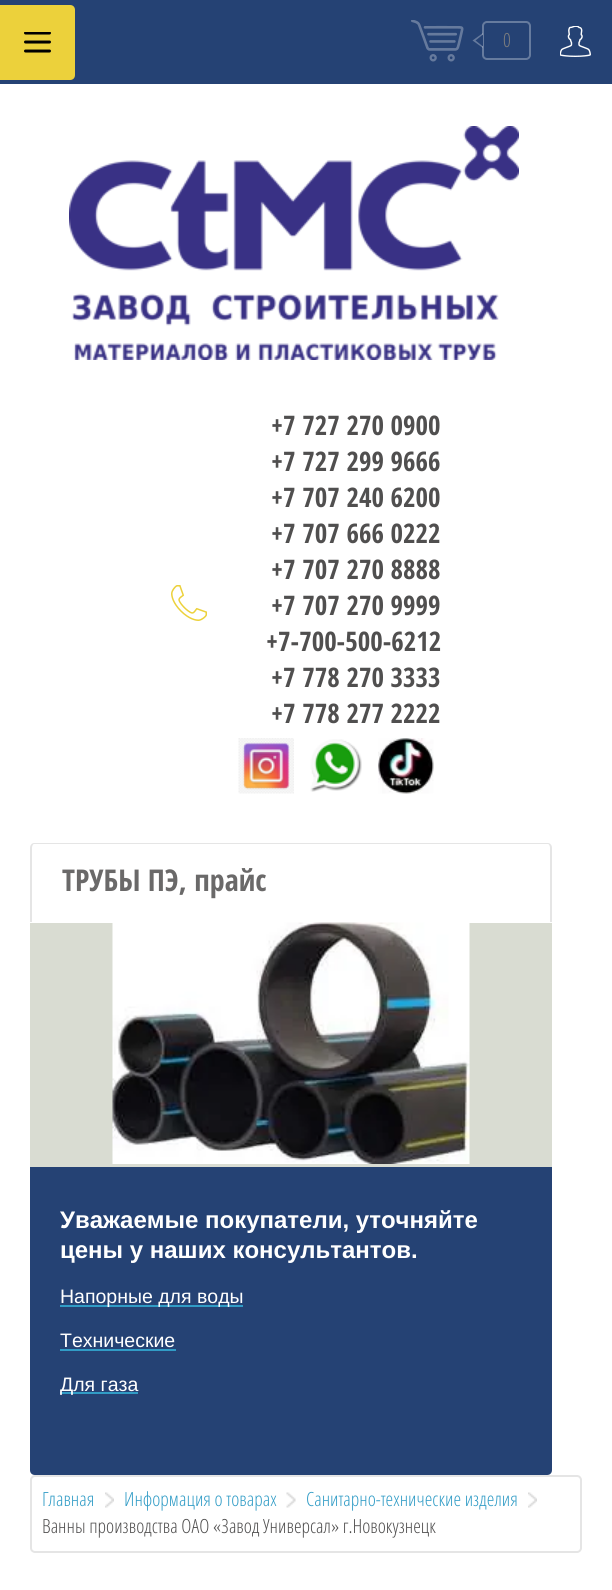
#include <cairo.h>
#include <math.h>
#include <stddef.h>


static void set_color(cairo_t *cr, unsigned color) {
    cairo_set_source_rgb(cr, (color >> 16) / 255.0, (color >> 8 & 255) / 255.0, (color & 255) / 255.0);
}

static void draw_text(cairo_t *cr, double x, double y, const char *s, const char *family, double size, int italic, int bold, unsigned color) {
    cairo_select_font_face(cr, family, italic ? CAIRO_FONT_SLANT_ITALIC : CAIRO_FONT_SLANT_NORMAL,
        bold ? CAIRO_FONT_WEIGHT_BOLD : CAIRO_FONT_WEIGHT_NORMAL);
    cairo_set_font_size(cr, size);
    set_color(cr, color);
    cairo_move_to(cr, x, y);
    cairo_show_text(cr, s);
}

static void fill_rect(cairo_t *cr, double x, double y, double w, double h, unsigned color) {
    set_color(cr, color);
    cairo_rectangle(cr, x, y, w, h);
    cairo_fill(cr);
}

static void rounded_rect(cairo_t *cr, double x, double y, double w, double h, double r) {
    cairo_new_sub_path(cr);
    cairo_arc(cr, x + w - r, y + h - r, r, 0, M_PI / 2);
    cairo_arc(cr, x + r, y + h - r, r, M_PI / 2, M_PI);
    cairo_arc(cr, x + r, y + r, r, M_PI, 1.5 * M_PI);
    cairo_arc(cr, x + w - r, y + r, r, 1.5 * M_PI, 2 * M_PI);
    cairo_close_path(cr);
}

static void draw_image(cairo_t *cr, const char *path, double x, double y, double w, double h) {
    cairo_surface_t *image = cairo_image_surface_create_from_png(path);
    cairo_save(cr);
    cairo_set_source_surface(cr, image, x, y);
    cairo_rectangle(cr, x, y, w, h);
    cairo_fill(cr);
    cairo_restore(cr);
    cairo_surface_destroy(image);
}

int main(void) {
    cairo_surface_t *surface = cairo_image_surface_create(CAIRO_FORMAT_RGB24, 612, 1590);
    cairo_t *cr = cairo_create(surface);
    cairo_font_options_t *options = cairo_font_options_create();
    cairo_font_options_set_hint_metrics(options, CAIRO_HINT_METRICS_OFF);
    cairo_font_options_set_hint_style(options, CAIRO_HINT_STYLE_NONE);
    cairo_set_font_options(cr, options);
    cairo_set_miter_limit(cr, 4);
    set_color(cr, 0xFFFFFF);
    cairo_paint(cr);
    fill_rect(cr, 0, 0, 612, 84, 0x254274);
    set_color(cr, 0xECD13B);
    cairo_new_path(cr);
    cairo_move_to(cr, 0, 5);
    cairo_line_to(cr, 70, 5);
    cairo_curve_to(cr, 73, 5, 75, 7, 75, 10);
    cairo_line_to(cr, 75, 75);
    cairo_curve_to(cr, 75, 78, 73, 80, 70, 80);
    cairo_line_to(cr, 0, 80);
    cairo_close_path(cr);
    cairo_fill(cr);
    draw_image(cr, "assets/img1.png", 24, 32, 27, 21);
    draw_image(cr, "assets/img2.png", 411, 20, 53, 42);
    rounded_rect(cr, 483, 22, 47, 37, 4);
    set_color(cr, 0x667B9E);
    cairo_stroke(cr);
    cairo_set_source_rgba(cr, 1, 1, 1, 0.3);
    cairo_new_path(cr);
    cairo_move_to(cr, 483, 33);
    cairo_line_to(cr, 483, 48);
    cairo_line_to(cr, 472.5, 40.5);
    cairo_close_path(cr);
    cairo_fill(cr);
    draw_text(cr, 503, 47, "0", "Open Sans Light", 19.5, 0, 0, 0x7E7E7E);
    set_color(cr, 0x254274);
    cairo_new_path(cr);
    cairo_move_to(cr, 483, 34.5);
    cairo_line_to(cr, 483, 46.5);
    cairo_line_to(cr, 475.5, 40.5);
    cairo_close_path(cr);
    cairo_fill(cr);
    draw_image(cr, "assets/img3.png", 560, 26, 31, 31);
    draw_image(cr, "assets/img4.png", 69, 126, 450, 234);
    draw_image(cr, "assets/img5.png", 171, 585, 36, 36);
    draw_text(cr, 271, 435, "+7 727 270 0900", "Open Sans Condensed", 27, 0, 1, 0x504F4F);
    draw_text(cr, 271, 471, "+7 727 299 9666", "Open Sans Condensed", 27, 0, 1, 0x504F4F);
    draw_text(cr, 271, 507, "+7 707 240 6200", "Open Sans Condensed", 27, 0, 1, 0x504F4F);
    draw_text(cr, 271, 543, "+7 707 666 0222", "Open Sans Condensed", 27, 0, 1, 0x504F4F);
    draw_text(cr, 271, 579, "+7 707 270 8888", "Open Sans Condensed", 27, 0, 1, 0x504F4F);
    draw_text(cr, 271, 615, "+7 707 270 9999", "Open Sans Condensed", 27, 0, 1, 0x504F4F);
    draw_text(cr, 266, 651, "+7-700-500-6212", "Open Sans Condensed", 27, 0, 1, 0x504F4F);
    draw_text(cr, 271, 687, "+7 778 270 3333", "Open Sans Condensed", 27, 0, 1, 0x504F4F);
    draw_text(cr, 271, 723, "+7 778 277 2222", "Open Sans Condensed", 27, 0, 1, 0x504F4F);
    draw_image(cr, "assets/img6.png", 238, 738, 56, 56);
    draw_image(cr, "assets/img7.png", 310, 739, 52, 53);
    draw_image(cr, "assets/img8.png", 378, 738, 56, 56);
    set_color(cr, 0xE5E5E5);
    cairo_set_fill_rule(cr, CAIRO_FILL_RULE_EVEN_ODD);
    cairo_new_path(cr);
    cairo_move_to(cr, 34, 843);
    cairo_line_to(cr, 548, 843);
    cairo_curve_to(cr, 550, 843, 552, 845, 552, 848);
    cairo_line_to(cr, 552, 922);
    cairo_line_to(cr, 30, 922);
    cairo_line_to(cr, 30, 848);
    cairo_curve_to(cr, 30, 845, 32, 843, 34, 843);
    cairo_close_path(cr);
    cairo_move_to(cr, 34, 844);
    cairo_line_to(cr, 548, 844);
    cairo_curve_to(cr, 549, 844, 550, 846, 550, 848);
    cairo_line_to(cr, 550, 922);
    cairo_line_to(cr, 32, 922);
    cairo_line_to(cr, 32, 848);
    cairo_curve_to(cr, 32, 846, 33, 844, 34, 844);
    cairo_close_path(cr);
    cairo_fill(cr);
    draw_text(cr, 62, 891, "ТРУБЫ ПЭ, прайс", "Open Sans Condensed", 30, 0, 1, 0x6A6969);
    fill_rect(cr, 30, 923, 522, 244, 0xD9DCD2);
    draw_image(cr, "assets/img9.png", 112, 922, 358, 242);
    set_color(cr, 0x254274);
    cairo_new_path(cr);
    cairo_move_to(cr, 30, 1167);
    cairo_line_to(cr, 552, 1167);
    cairo_line_to(cr, 552, 1470);
    cairo_curve_to(cr, 552, 1473, 550, 1475, 547, 1475);
    cairo_line_to(cr, 35, 1475);
    cairo_curve_to(cr, 32, 1475, 30, 1473, 30, 1470);
    cairo_close_path(cr);
    cairo_fill(cr);
    draw_text(cr, 60, 1228, "Уважаемые покупатели, уточняйте", "Liberation Sans", 24, 0, 1, 0xFFFFFF);
    draw_text(cr, 60, 1258, "цены у наших консультантов.", "Liberation Sans", 24, 0, 1, 0xFFFFFF);
    fill_rect(cr, 60, 1305, 183, 2, 0x319CC6);
    draw_text(cr, 60, 1303, "Напорные для воды", "Liberation Sans", 19.5, 0, 0, 0xFFFFFF);
    draw_text(cr, 60, 1347, "Технические", "Liberation Sans", 19.5, 0, 0, 0xFFFFFF);
    fill_rect(cr, 60, 1349, 116, 2, 0x319CC6);
    fill_rect(cr, 60, 1392, 78, 2, 0x319CC6);
    draw_text(cr, 60, 1391, "Для газа", "Liberation Sans", 19.5, 0, 0, 0xFFFFFF);
    rounded_rect(cr, 31, 1476, 550, 76, 4);
    set_color(cr, 0xE5E5E5);
    cairo_stroke(cr);
    draw_text(cr, 42, 1506, "Главная", "Open Sans Light", 19.5, 0, 0, 0x319CC6);
    draw_image(cr, "assets/img10.png", 105, 1492, 9, 16);
    draw_text(cr, 124, 1506, "Информация о товарах", "Open Sans Light", 19.5, 0, 0, 0x319CC6);
    draw_image(cr, "assets/img11.png", 286, 1492, 10, 16);
    draw_text(cr, 306, 1506, "Санитарно-технические изделия", "Open Sans Light", 19.5, 0, 0, 0x319CC6);
    draw_image(cr, "assets/img12.png", 528, 1492, 9, 16);
    draw_text(cr, 42, 1533, "Ванны производства ОАО «Завод Универсал» г.Новокузнецк", "Open Sans Light", 19.5, 0, 0, 0x504F4F);
    cairo_surface_write_to_png(surface, "output.png");
    cairo_font_options_destroy(options);
    cairo_destroy(cr);
    cairo_surface_destroy(surface);
    return 0;
}
